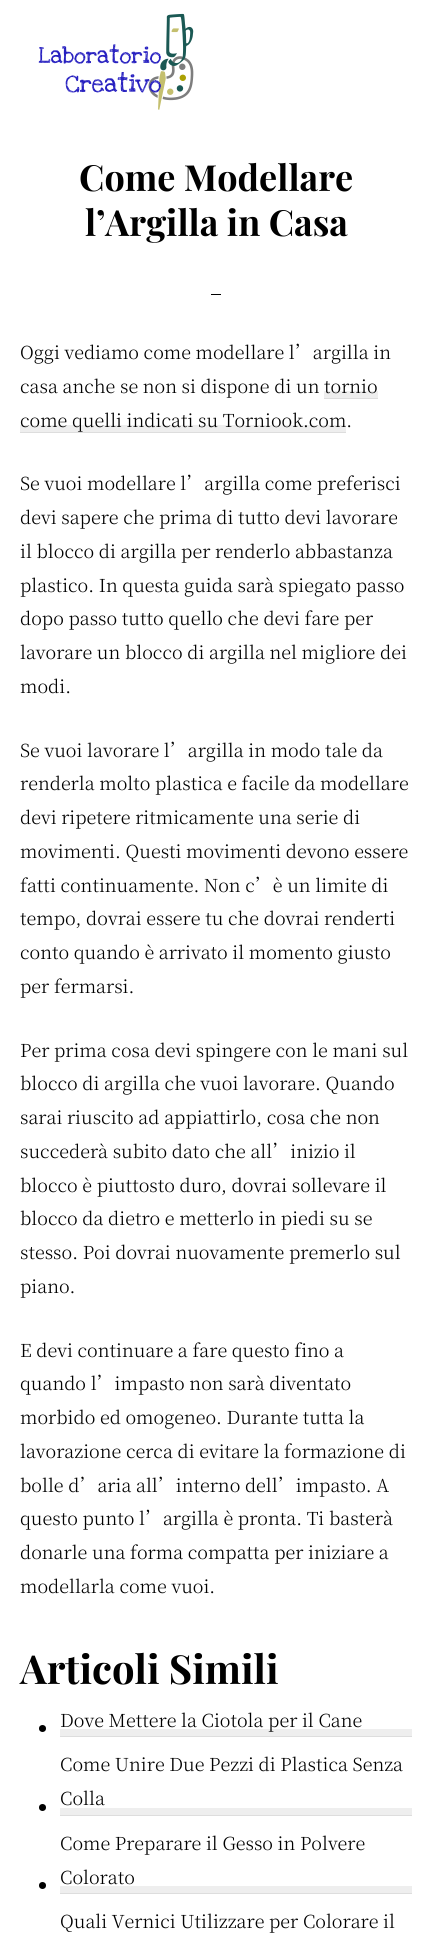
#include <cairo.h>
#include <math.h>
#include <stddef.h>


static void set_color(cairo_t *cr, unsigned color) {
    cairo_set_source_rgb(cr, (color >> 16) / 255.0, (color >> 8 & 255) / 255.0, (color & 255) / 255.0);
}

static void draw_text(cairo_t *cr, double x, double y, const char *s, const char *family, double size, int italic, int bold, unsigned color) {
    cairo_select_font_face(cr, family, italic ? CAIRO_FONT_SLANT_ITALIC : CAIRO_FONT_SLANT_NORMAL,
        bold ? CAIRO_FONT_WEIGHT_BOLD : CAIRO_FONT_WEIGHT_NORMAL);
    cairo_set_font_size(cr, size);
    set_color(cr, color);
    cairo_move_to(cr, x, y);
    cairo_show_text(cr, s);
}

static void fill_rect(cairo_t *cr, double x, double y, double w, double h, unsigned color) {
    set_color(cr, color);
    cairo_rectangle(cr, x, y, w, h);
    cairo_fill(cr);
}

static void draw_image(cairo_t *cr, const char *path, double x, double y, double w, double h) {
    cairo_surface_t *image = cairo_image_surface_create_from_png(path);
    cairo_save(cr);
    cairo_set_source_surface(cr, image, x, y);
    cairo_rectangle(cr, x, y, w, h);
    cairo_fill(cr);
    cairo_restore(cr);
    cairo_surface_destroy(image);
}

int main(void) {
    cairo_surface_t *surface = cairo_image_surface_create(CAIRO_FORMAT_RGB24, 432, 1933);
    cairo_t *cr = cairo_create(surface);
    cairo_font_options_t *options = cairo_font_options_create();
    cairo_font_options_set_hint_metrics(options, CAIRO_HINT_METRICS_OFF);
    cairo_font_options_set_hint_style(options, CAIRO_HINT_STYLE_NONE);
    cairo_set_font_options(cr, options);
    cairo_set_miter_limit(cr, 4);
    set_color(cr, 0xFFFFFF);
    cairo_paint(cr);
    draw_image(cr, "assets/img1.png", 38, 13, 156, 97);
    draw_text(cr, 79, 191, "Come Modellare", "Playfair Display", 36, 0, 1, 0x000000);
    draw_text(cr, 85, 236, "l’Argilla in Casa", "Playfair Display", 36, 0, 1, 0x000000);
    fill_rect(cr, 211, 294, 10, 1, 0x000000);
    draw_text(cr, 20, 359, "Oggi vediamo come modellare l’argilla in", "Noto Serif SC Light", 18, 0, 0, 0x000000);
    draw_text(cr, 20, 393, "casa anche se non si dispone di un", "Noto Serif SC Light", 18, 0, 0, 0x000000);
    fill_rect(cr, 324, 391, 54, 7, 0xEEEEEE);
    draw_text(cr, 324, 393, "tornio", "Noto Serif SC Light", 18, 0, 0, 0x000000);
    fill_rect(cr, 324, 398, 54, 1, 0xDDDDDD);
    fill_rect(cr, 20, 425, 326, 7, 0xEEEEEE);
    draw_text(cr, 20, 427, "come quelli indicati su Torniook.com.", "Noto Serif SC Light", 18, 0, 0, 0x000000);
    fill_rect(cr, 20, 432, 326, 1, 0xDDDDDD);
    draw_text(cr, 20, 490, "Se vuoi modellare l’argilla come preferisci", "Noto Serif SC Light", 18, 0, 0, 0x000000);
    draw_text(cr, 20, 524, "devi sapere che prima di tutto devi lavorare", "Noto Serif SC Light", 18, 0, 0, 0x000000);
    draw_text(cr, 20, 558, "il blocco di argilla per renderlo abbastanza", "Noto Serif SC Light", 18, 0, 0, 0x000000);
    draw_text(cr, 20, 592, "plastico. In questa guida sarà spiegato passo", "Noto Serif SC Light", 18, 0, 0, 0x000000);
    draw_text(cr, 20, 625, "dopo passo tutto quello che devi fare per", "Noto Serif SC Light", 18, 0, 0, 0x000000);
    draw_text(cr, 20, 659, "lavorare un blocco di argilla nel migliore dei", "Noto Serif SC Light", 18, 0, 0, 0x000000);
    draw_text(cr, 20, 693, "modi.", "Noto Serif SC Light", 18, 0, 0, 0x000000);
    draw_text(cr, 20, 757, "Se vuoi lavorare l’argilla in modo tale da", "Noto Serif SC Light", 18, 0, 0, 0x000000);
    draw_text(cr, 20, 790, "renderla molto plastica e facile da modellare", "Noto Serif SC Light", 18, 0, 0, 0x000000);
    draw_text(cr, 20, 824, "devi ripetere ritmicamente una serie di", "Noto Serif SC Light", 18, 0, 0, 0x000000);
    draw_text(cr, 20, 858, "movimenti. Questi movimenti devono essere", "Noto Serif SC Light", 18, 0, 0, 0x000000);
    draw_text(cr, 20, 892, "fatti continuamente. Non c’è un limite di", "Noto Serif SC Light", 18, 0, 0, 0x000000);
    draw_text(cr, 20, 925, "tempo, dovrai essere tu che dovrai renderti", "Noto Serif SC Light", 18, 0, 0, 0x000000);
    draw_text(cr, 20, 959, "conto quando è arrivato il momento giusto", "Noto Serif SC Light", 18, 0, 0, 0x000000);
    draw_text(cr, 20, 993, "per fermarsi.", "Noto Serif SC Light", 18, 0, 0, 0x000000);
    draw_text(cr, 20, 1057, "Per prima cosa devi spingere con le mani sul", "Noto Serif SC Light", 18, 0, 0, 0x000000);
    draw_text(cr, 20, 1090, "blocco di argilla che vuoi lavorare. Quando", "Noto Serif SC Light", 18, 0, 0, 0x000000);
    draw_text(cr, 20, 1124, "sarai riuscito ad appiattirlo, cosa che non", "Noto Serif SC Light", 18, 0, 0, 0x000000);
    draw_text(cr, 20, 1158, "succederà subito dato che all’inizio il", "Noto Serif SC Light", 18, 0, 0, 0x000000);
    draw_text(cr, 20, 1192, "blocco è piuttosto duro, dovrai sollevare il", "Noto Serif SC Light", 18, 0, 0, 0x000000);
    draw_text(cr, 20, 1225, "blocco da dietro e metterlo in piedi su se", "Noto Serif SC Light", 18, 0, 0, 0x000000);
    draw_text(cr, 20, 1259, "stesso. Poi dovrai nuovamente premerlo sul", "Noto Serif SC Light", 18, 0, 0, 0x000000);
    draw_text(cr, 20, 1293, "piano.", "Noto Serif SC Light", 18, 0, 0, 0x000000);
    draw_text(cr, 20, 1357, "E devi continuare a fare questo fino a", "Noto Serif SC Light", 18, 0, 0, 0x000000);
    draw_text(cr, 20, 1390, "quando l’impasto non sarà diventato", "Noto Serif SC Light", 18, 0, 0, 0x000000);
    draw_text(cr, 20, 1424, "morbido ed omogeneo. Durante tutta la", "Noto Serif SC Light", 18, 0, 0, 0x000000);
    draw_text(cr, 20, 1458, "lavorazione cerca di evitare la formazione di", "Noto Serif SC Light", 18, 0, 0, 0x000000);
    draw_text(cr, 20, 1492, "bolle d’aria all’interno dell’impasto. A", "Noto Serif SC Light", 18, 0, 0, 0x000000);
    draw_text(cr, 20, 1525, "questo punto l’argilla è pronta. Ti basterà", "Noto Serif SC Light", 18, 0, 0, 0x000000);
    draw_text(cr, 20, 1559, "donarle una forma compatta per iniziare a", "Noto Serif SC Light", 18, 0, 0, 0x000000);
    draw_text(cr, 20, 1593, "modellarla come vuoi.", "Noto Serif SC Light", 18, 0, 0, 0x000000);
    draw_text(cr, 20, 1684, "Articoli Simili", "Playfair Display", 40, 0, 1, 0x000000);
    cairo_new_path(cr);
    cairo_arc(cr, 42.5, 1728.5, 3.5, 0, 2 * M_PI);
    cairo_fill(cr);
    fill_rect(cr, 60, 1729, 352, 7, 0xEEEEEE);
    fill_rect(cr, 60, 1736, 352, 1, 0xDDDDDD);
    draw_text(cr, 60, 1727, "Dove Mettere la Ciotola per il Cane", "Noto Serif SC Light", 18, 0, 0, 0x000000);
    fill_rect(cr, 60, 1808, 352, 7, 0xEEEEEE);
    fill_rect(cr, 60, 1815, 352, 1, 0xDDDDDD);
    draw_text(cr, 60, 1771, "Come Unire Due Pezzi di Plastica Senza", "Noto Serif SC Light", 18, 0, 0, 0x000000);
    draw_text(cr, 60, 1805, "Colla", "Noto Serif SC Light", 18, 0, 0, 0x000000);
    cairo_new_path(cr);
    cairo_arc(cr, 42.5, 1807.5, 3.5, 0, 2 * M_PI);
    cairo_fill(cr);
    cairo_arc(cr, 42.5, 1885.5, 3.5, 0, 2 * M_PI);
    cairo_fill(cr);
    fill_rect(cr, 60, 1886, 352, 7, 0xEEEEEE);
    fill_rect(cr, 60, 1893, 352, 1, 0xDDDDDD);
    draw_text(cr, 60, 1850, "Come Preparare il Gesso in Polvere", "Noto Serif SC Light", 18, 0, 0, 0x000000);
    draw_text(cr, 60, 1884, "Colorato", "Noto Serif SC Light", 18, 0, 0, 0x000000);
    draw_text(cr, 60, 1928, "Quali Vernici Utilizzare per Colorare il", "Noto Serif SC Light", 18, 0, 0, 0x000000);
    cairo_surface_write_to_png(surface, "output.png");
    cairo_font_options_destroy(options);
    cairo_destroy(cr);
    cairo_surface_destroy(surface);
    return 0;
}
